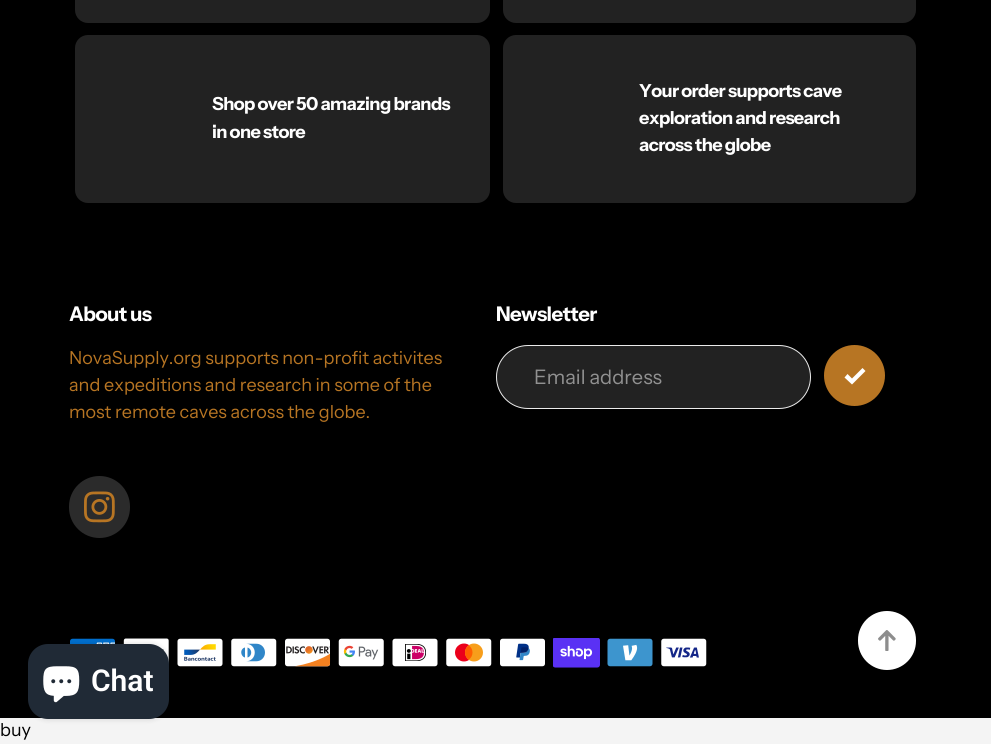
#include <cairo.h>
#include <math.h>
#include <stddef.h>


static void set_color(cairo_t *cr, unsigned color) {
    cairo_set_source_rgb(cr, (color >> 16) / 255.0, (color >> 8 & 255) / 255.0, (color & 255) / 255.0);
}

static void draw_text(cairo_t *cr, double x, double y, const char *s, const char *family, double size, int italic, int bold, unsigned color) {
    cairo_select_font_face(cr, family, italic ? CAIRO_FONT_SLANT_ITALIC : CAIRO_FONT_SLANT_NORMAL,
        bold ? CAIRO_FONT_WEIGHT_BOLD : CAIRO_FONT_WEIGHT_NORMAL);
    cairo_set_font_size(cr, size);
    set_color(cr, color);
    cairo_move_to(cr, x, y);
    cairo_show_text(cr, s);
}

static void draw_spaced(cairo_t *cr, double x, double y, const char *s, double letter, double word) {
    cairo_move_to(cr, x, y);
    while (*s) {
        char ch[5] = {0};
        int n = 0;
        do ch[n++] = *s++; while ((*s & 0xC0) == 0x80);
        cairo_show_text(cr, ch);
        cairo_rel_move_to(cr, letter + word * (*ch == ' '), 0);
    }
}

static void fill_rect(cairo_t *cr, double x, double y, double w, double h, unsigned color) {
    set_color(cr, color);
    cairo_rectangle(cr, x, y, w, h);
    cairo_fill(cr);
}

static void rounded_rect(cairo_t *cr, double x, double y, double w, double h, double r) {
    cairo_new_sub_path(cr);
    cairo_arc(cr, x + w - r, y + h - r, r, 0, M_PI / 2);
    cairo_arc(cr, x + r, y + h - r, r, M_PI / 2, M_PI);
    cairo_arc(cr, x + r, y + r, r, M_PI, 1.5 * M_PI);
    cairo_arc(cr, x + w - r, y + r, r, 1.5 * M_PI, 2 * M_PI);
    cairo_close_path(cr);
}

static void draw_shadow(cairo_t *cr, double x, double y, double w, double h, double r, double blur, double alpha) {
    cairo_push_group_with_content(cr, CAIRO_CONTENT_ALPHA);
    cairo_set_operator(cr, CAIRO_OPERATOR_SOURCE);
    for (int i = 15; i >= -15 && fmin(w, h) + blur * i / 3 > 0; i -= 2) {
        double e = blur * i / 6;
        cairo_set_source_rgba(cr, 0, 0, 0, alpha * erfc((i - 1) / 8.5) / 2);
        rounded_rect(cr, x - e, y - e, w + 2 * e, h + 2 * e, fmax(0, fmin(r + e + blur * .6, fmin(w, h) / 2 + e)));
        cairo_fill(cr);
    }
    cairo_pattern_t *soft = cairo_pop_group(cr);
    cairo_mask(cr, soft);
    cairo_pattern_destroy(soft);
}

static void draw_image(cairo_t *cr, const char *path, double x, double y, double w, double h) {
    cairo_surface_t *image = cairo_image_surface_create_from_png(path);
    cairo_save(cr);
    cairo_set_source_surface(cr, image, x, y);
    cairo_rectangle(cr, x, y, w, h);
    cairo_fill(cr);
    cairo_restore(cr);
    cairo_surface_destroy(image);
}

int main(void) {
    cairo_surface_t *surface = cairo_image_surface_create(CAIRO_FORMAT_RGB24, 991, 744);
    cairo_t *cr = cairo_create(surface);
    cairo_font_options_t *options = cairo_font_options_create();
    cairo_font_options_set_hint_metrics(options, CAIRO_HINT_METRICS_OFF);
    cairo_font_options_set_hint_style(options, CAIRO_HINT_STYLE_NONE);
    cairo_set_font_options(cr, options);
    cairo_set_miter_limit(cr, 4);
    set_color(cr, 0xF4F4F4);
    cairo_paint(cr);
    fill_rect(cr, 0, 0, 991, 718, 0x000000);
    set_color(cr, 0x222222);
    rounded_rect(cr, 75, -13, 415, 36, 13);
    cairo_fill(cr);
    rounded_rect(cr, 503, -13, 413, 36, 13);
    cairo_fill(cr);
    rounded_rect(cr, 75, 35, 415, 168, 13);
    cairo_fill(cr);
    cairo_select_font_face(cr, "Instrument Sans", CAIRO_FONT_SLANT_NORMAL, CAIRO_FONT_WEIGHT_BOLD);
    cairo_set_font_size(cr, 18);
    set_color(cr, 0xFFFFFF);
    draw_spaced(cr, 212, 110, "Shop over 50 amazing brands", -0.6, 0);
    draw_spaced(cr, 212, 138, "in one store", -0.6, 0);
    set_color(cr, 0x222222);
    rounded_rect(cr, 503, 35, 413, 168, 13);
    cairo_fill(cr);
    set_color(cr, 0xFFFFFF);
    draw_spaced(cr, 639, 97, "Your order supports cave", -0.6, 0);
    draw_spaced(cr, 639, 124, "exploration and research", -0.6, 0);
    draw_spaced(cr, 639, 151, "across the globe", -0.6, 0);
    cairo_set_font_size(cr, 20.25);
    draw_spaced(cr, 69, 321, "About us", -0.6, 0);
    draw_text(cr, 69, 364, "NovaSupply.org supports non-profit activites", "Instrument Sans", 18, 0, 0, 0xB77523);
    draw_text(cr, 69, 391, "and expeditions and research in some of the", "Instrument Sans", 18, 0, 0, 0xB77523);
    draw_text(cr, 69, 418, "most remote caves across the globe.", "Instrument Sans", 18, 0, 0, 0xB77523);
    set_color(cr, 0x2B2B2B);
    rounded_rect(cr, 69, 476, 61, 62, 30.5);
    cairo_fill(cr);
    draw_image(cr, "assets/img1.png", 84, 491, 31, 32);
    cairo_select_font_face(cr, "Instrument Sans", CAIRO_FONT_SLANT_NORMAL, CAIRO_FONT_WEIGHT_BOLD);
    cairo_set_font_size(cr, 20.25);
    set_color(cr, 0xFFFFFF);
    draw_spaced(cr, 496, 321, "Newsletter", -0.6, 0);
    set_color(cr, 0x222222);
    rounded_rect(cr, 496.5, 345.5, 314, 63, 31.5);
    cairo_fill_preserve(cr);
    set_color(cr, 0xEBEBEB);
    cairo_set_line_width(cr, 1);
    cairo_stroke(cr);
    draw_text(cr, 534, 384, "Email address", "Instrument Sans", 20, 0, 0, 0x919191);
    set_color(cr, 0xB77523);
    cairo_new_path(cr);
    cairo_arc(cr, 854.5, 375.5, 30.5, 0, 2 * M_PI);
    cairo_fill(cr);
    set_color(cr, 0xFFFFFF);
    cairo_new_path(cr);
    cairo_move_to(cr, 852, 384.5);
    cairo_line_to(cr, 844.5, 377.5);
    cairo_line_to(cr, 847.5, 374);
    cairo_line_to(cr, 852, 378.5);
    cairo_line_to(cr, 862.5, 368);
    cairo_line_to(cr, 865.5, 371);
    cairo_close_path(cr);
    cairo_fill(cr);
    draw_image(cr, "assets/img2.png", 70, 638, 45, 6);
    draw_image(cr, "assets/img3.png", 123, 638, 46, 26);
    draw_image(cr, "assets/img4.png", 177, 638, 46, 29);
    draw_image(cr, "assets/img5.png", 231, 638, 46, 29);
    draw_image(cr, "assets/img6.png", 285, 638, 46, 29);
    draw_image(cr, "assets/img7.png", 338, 638, 46, 29);
    draw_image(cr, "assets/img8.png", 392, 638, 46, 29);
    draw_image(cr, "assets/img9.png", 446, 638, 46, 29);
    draw_image(cr, "assets/img10.png", 500, 638, 45, 29);
    draw_image(cr, "assets/img11.png", 553, 638, 47, 30);
    draw_image(cr, "assets/img12.png", 607, 638, 46, 29);
    draw_image(cr, "assets/img13.png", 661, 638, 46, 29);
    rounded_rect(cr, 858, 611, 58, 59, 29);
    cairo_fill(cr);
    draw_image(cr, "assets/img14.png", 878, 630, 18, 21);
    set_color(cr, 0x000000);
    draw_shadow(cr, 28, 644, 141, 75, 20, 3, 0.15);
    set_color(cr, 0x202A36);
    rounded_rect(cr, 28, 644, 141, 75, 20);
    cairo_fill(cr);
    draw_image(cr, "assets/img15.png", 43, 666, 37, 37);
    draw_text(cr, 91, 691, "Chat", "Roboto SemiBold", 30, 0, 0, 0xFFFFFF);
    draw_text(cr, 0, 736, "buy", "Instrument Sans", 18, 0, 0, 0x000000);
    cairo_surface_write_to_png(surface, "output.png");
    cairo_font_options_destroy(options);
    cairo_destroy(cr);
    cairo_surface_destroy(surface);
    return 0;
}
